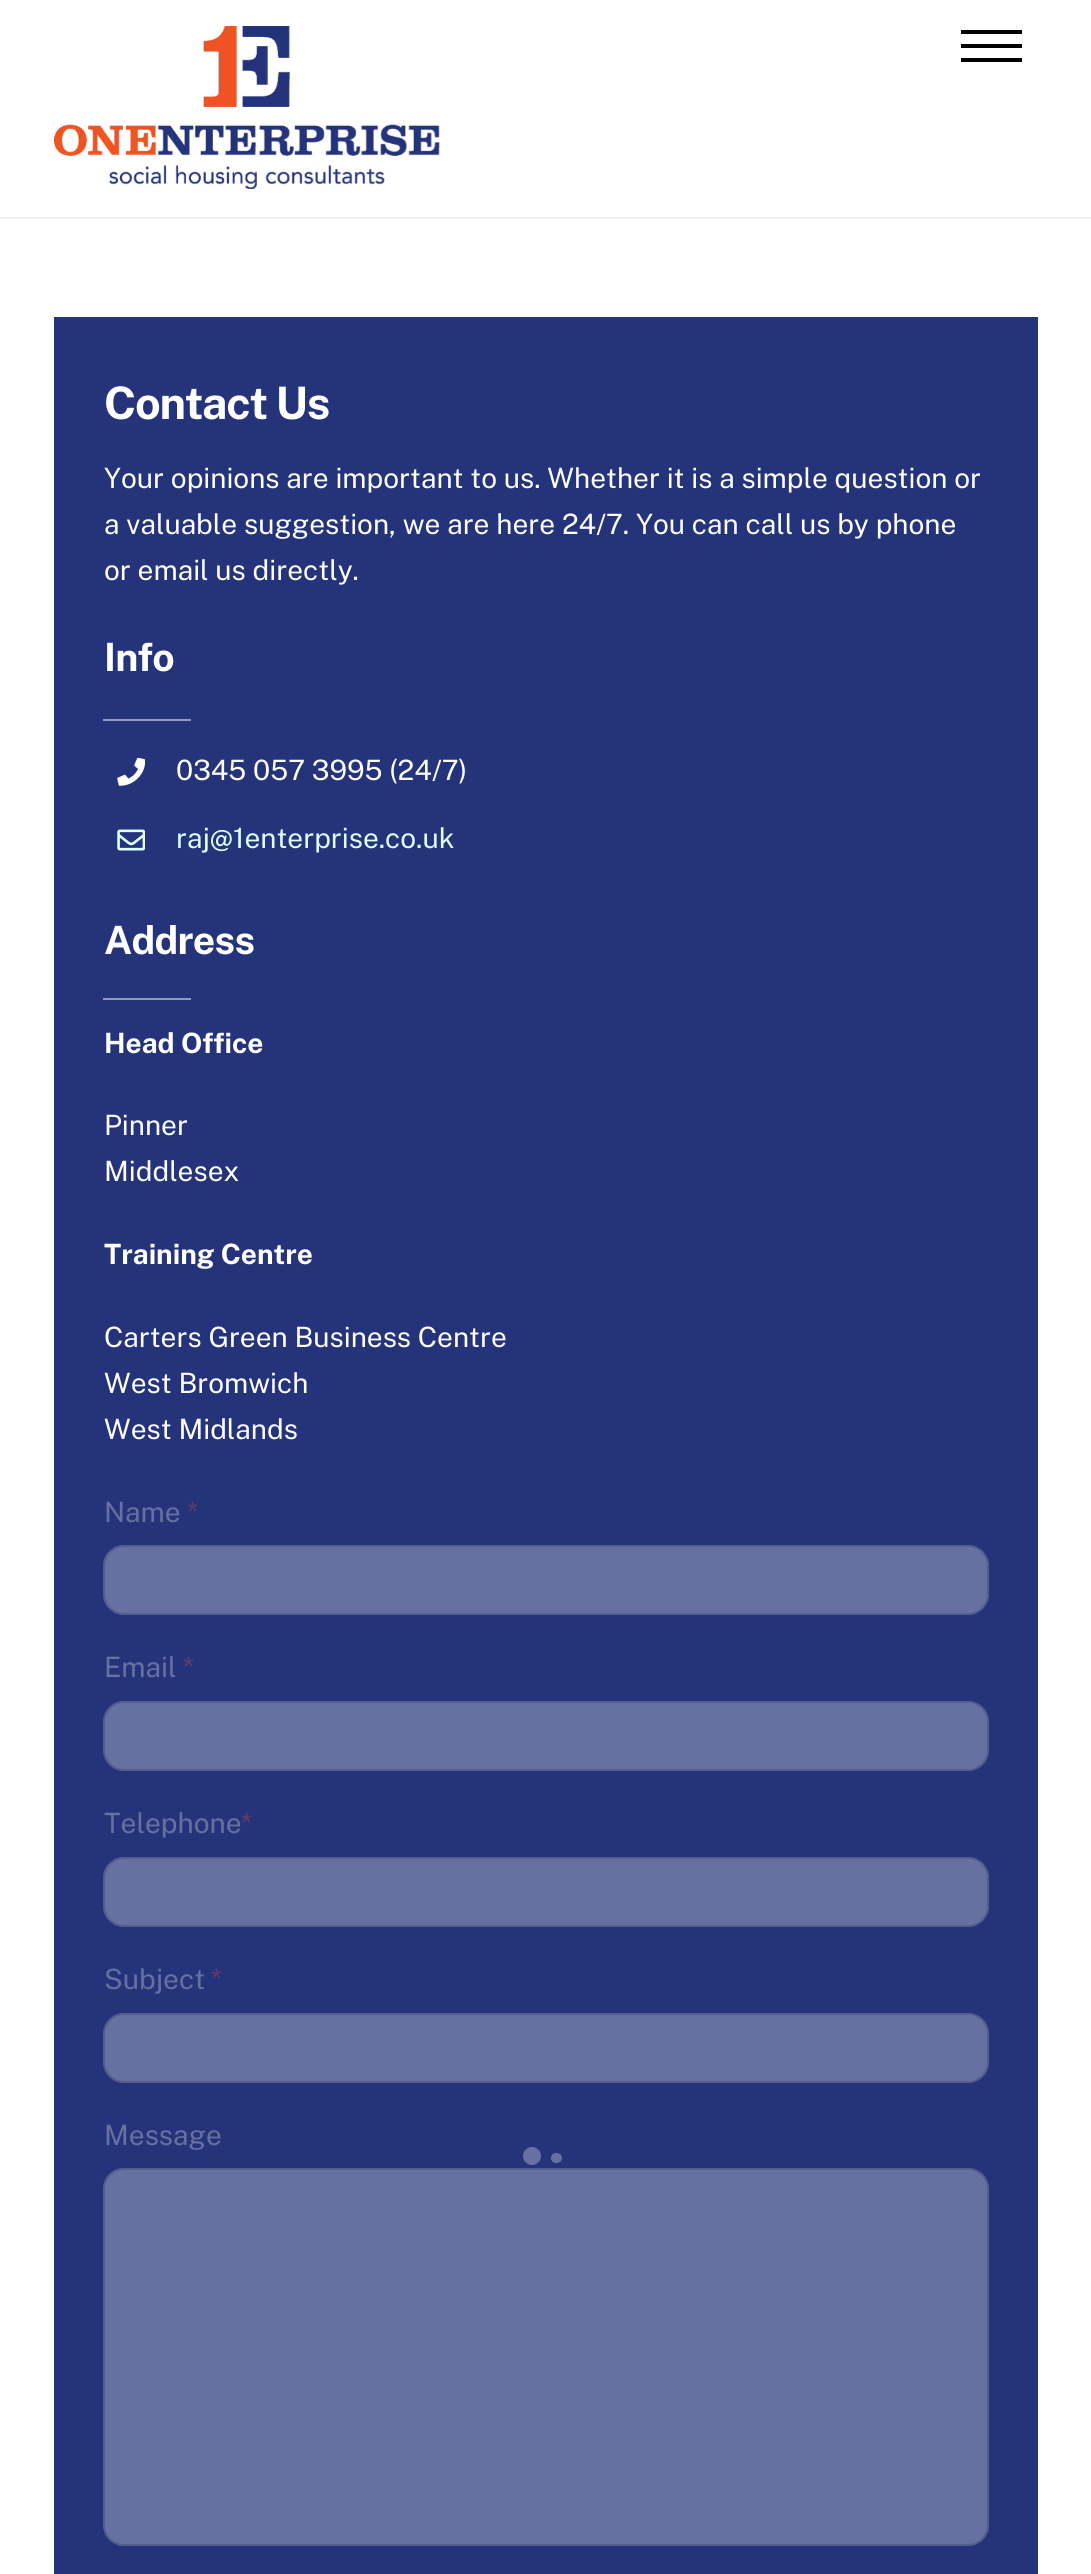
#include <cairo.h>
#include <math.h>
#include <stddef.h>


static void set_color(cairo_t *cr, unsigned color) {
    cairo_set_source_rgb(cr, (color >> 16) / 255.0, (color >> 8 & 255) / 255.0, (color & 255) / 255.0);
}

static void draw_text(cairo_t *cr, double x, double y, const char *s, const char *family, double size, int italic, int bold, unsigned color) {
    cairo_select_font_face(cr, family, italic ? CAIRO_FONT_SLANT_ITALIC : CAIRO_FONT_SLANT_NORMAL,
        bold ? CAIRO_FONT_WEIGHT_BOLD : CAIRO_FONT_WEIGHT_NORMAL);
    cairo_set_font_size(cr, size);
    set_color(cr, color);
    cairo_move_to(cr, x, y);
    cairo_show_text(cr, s);
}

static void draw_spaced(cairo_t *cr, double x, double y, const char *s, double letter, double word) {
    cairo_move_to(cr, x, y);
    while (*s) {
        char ch[5] = {0};
        int n = 0;
        do ch[n++] = *s++; while ((*s & 0xC0) == 0x80);
        cairo_show_text(cr, ch);
        cairo_rel_move_to(cr, letter + word * (*ch == ' '), 0);
    }
}

static void fill_rect(cairo_t *cr, double x, double y, double w, double h, unsigned color) {
    set_color(cr, color);
    cairo_rectangle(cr, x, y, w, h);
    cairo_fill(cr);
}

static void rounded_rect(cairo_t *cr, double x, double y, double w, double h, double r) {
    cairo_new_sub_path(cr);
    cairo_arc(cr, x + w - r, y + h - r, r, 0, M_PI / 2);
    cairo_arc(cr, x + r, y + h - r, r, M_PI / 2, M_PI);
    cairo_arc(cr, x + r, y + r, r, M_PI, 1.5 * M_PI);
    cairo_arc(cr, x + w - r, y + r, r, 1.5 * M_PI, 2 * M_PI);
    cairo_close_path(cr);
}

static void draw_image(cairo_t *cr, const char *path, double x, double y, double w, double h) {
    cairo_surface_t *image = cairo_image_surface_create_from_png(path);
    cairo_save(cr);
    cairo_set_source_surface(cr, image, x, y);
    cairo_rectangle(cr, x, y, w, h);
    cairo_fill(cr);
    cairo_restore(cr);
    cairo_surface_destroy(image);
}

int main(void) {
    cairo_surface_t *surface = cairo_image_surface_create(CAIRO_FORMAT_RGB24, 1091, 2574);
    cairo_t *cr = cairo_create(surface);
    cairo_font_options_t *options = cairo_font_options_create();
    cairo_font_options_set_hint_metrics(options, CAIRO_HINT_METRICS_OFF);
    cairo_font_options_set_hint_style(options, CAIRO_HINT_STYLE_NONE);
    cairo_set_font_options(cr, options);
    cairo_set_miter_limit(cr, 4);
    set_color(cr, 0xFFFFFF);
    cairo_paint(cr);
    fill_rect(cr, 0, 217, 1091, 2, 0xF2F2F2);
    draw_image(cr, "assets/img1.png", 54, 26, 386, 163);
    fill_rect(cr, 961, 58, 61, 4, 0x000000);
    fill_rect(cr, 961, 30, 61, 4, 0x000000);
    fill_rect(cr, 961, 44, 61, 4, 0x000000);
    fill_rect(cr, 54, 317, 984, 2257, 0x25347A);
    cairo_select_font_face(cr, "Public Sans", CAIRO_FONT_SLANT_NORMAL, CAIRO_FONT_WEIGHT_BOLD);
    cairo_set_font_size(cr, 44.75);
    set_color(cr, 0xFFFFFF);
    draw_spaced(cr, 104, 419, "Contact Us", -1.25, 0);
    draw_text(cr, 104, 488, "Your opinions are important to us. Whether it is a simple question or", "Public Sans", 28, 0, 0, 0xFFFFFF);
    draw_text(cr, 104, 534, "a valuable suggestion, we are here 24/7. You can call us by phone", "Public Sans", 28, 0, 0, 0xFFFFFF);
    draw_text(cr, 104, 580, "or email us directly.", "Public Sans", 28, 0, 0, 0xFFFFFF);
    cairo_select_font_face(cr, "Public Sans", CAIRO_FONT_SLANT_NORMAL, CAIRO_FONT_WEIGHT_BOLD);
    cairo_set_font_size(cr, 39);
    draw_spaced(cr, 104, 671, "Info", -0.75, 0);
    fill_rect(cr, 103, 719, 88, 2, 0x929ABD);
    draw_image(cr, "assets/img2.png", 117, 758, 28, 28);
    draw_text(cr, 176, 780, "0345 057 3995 (24/7)", "Public Sans", 28, 0, 0, 0xFFFFFF);
    draw_image(cr, "assets/img3.png", 117, 829, 28, 22);
    draw_text(cr, 176, 848, "raj@1enterprise.co.uk", "Public Sans", 28, 0, 0, 0xDEFFFE);
    cairo_select_font_face(cr, "Public Sans", CAIRO_FONT_SLANT_NORMAL, CAIRO_FONT_WEIGHT_BOLD);
    cairo_set_font_size(cr, 39);
    set_color(cr, 0xFFFFFF);
    draw_spaced(cr, 104, 954, "Address", -0.75, 0);
    fill_rect(cr, 103, 998, 88, 2, 0x929ABD);
    draw_text(cr, 104, 1053, "Head Office", "Public Sans", 28, 0, 1, 0xFFFFFF);
    draw_text(cr, 104, 1135, "Pinner", "Public Sans", 28, 0, 0, 0xFFFFFF);
    draw_text(cr, 104, 1181, "Middlesex", "Public Sans", 28, 0, 0, 0xFFFFFF);
    draw_text(cr, 104, 1264, "Training Centre", "Public Sans", 28, 0, 1, 0xFFFFFF);
    draw_text(cr, 104, 1347, "Carters Green Business Centre", "Public Sans", 28, 0, 0, 0xFFFFFF);
    draw_text(cr, 104, 1393, "West Bromwich", "Public Sans", 28, 0, 0, 0xFFFFFF);
    draw_text(cr, 104, 1439, "West Midlands", "Public Sans", 28, 0, 0, 0xFFFFFF);
    draw_text(cr, 104, 1522, "Name", "Public Sans", 28, 0, 0, 0x6671A2);
    draw_text(cr, 187, 1522, "*", "Public Sans", 28, 0, 0, 0x633B67);
    set_color(cr, 0x6671A2);
    rounded_rect(cr, 103, 1545, 886, 70, 21);
    cairo_fill(cr);
    rounded_rect(cr, 104, 1546, 884, 68, 20);
    cairo_set_source_rgba(cr, 0.102, 0.141, 0.333, 0.25);
    cairo_stroke(cr);
    draw_text(cr, 104, 1677, "Email", "Public Sans", 28, 0, 0, 0x6671A2);
    draw_text(cr, 183, 1677, "*", "Public Sans", 28, 0, 0, 0x633B67);
    set_color(cr, 0x6671A2);
    rounded_rect(cr, 103, 1701, 886, 70, 21);
    cairo_fill(cr);
    rounded_rect(cr, 104, 1702, 884, 68, 20);
    cairo_set_source_rgba(cr, 0.102, 0.141, 0.333, 0.25);
    cairo_stroke(cr);
    draw_text(cr, 104, 1833, "Telephone", "Public Sans", 28, 0, 0, 0x6671A2);
    draw_text(cr, 241, 1833, "*", "Public Sans", 28, 0, 0, 0x633B67);
    set_color(cr, 0x6671A2);
    rounded_rect(cr, 103, 1857, 886, 70, 21);
    cairo_fill(cr);
    rounded_rect(cr, 104, 1858, 884, 68, 20);
    cairo_set_source_rgba(cr, 0.102, 0.141, 0.333, 0.25);
    cairo_stroke(cr);
    draw_text(cr, 104, 1989, "Subject", "Public Sans", 28, 0, 0, 0x6671A2);
    draw_text(cr, 211, 1989, "*", "Public Sans", 28, 0, 0, 0x633B67);
    set_color(cr, 0x6671A2);
    rounded_rect(cr, 103, 2013, 886, 70, 21);
    cairo_fill(cr);
    rounded_rect(cr, 104, 2014, 884, 68, 20);
    cairo_set_source_rgba(cr, 0.102, 0.141, 0.333, 0.25);
    cairo_stroke(cr);
    draw_text(cr, 104, 2145, "Message", "Public Sans", 28, 0, 0, 0x6671A2);
    rounded_rect(cr, 103, 2168, 886, 378, 21);
    cairo_fill(cr);
    rounded_rect(cr, 104, 2169, 884, 376, 20);
    cairo_set_source_rgba(cr, 0.102, 0.141, 0.333, 0.25);
    cairo_stroke(cr);
    set_color(cr, 0x6671A2);
    cairo_arc(cr, 532, 2156, 9, 0, 2 * M_PI);
    cairo_fill(cr);
    rounded_rect(cr, 551, 2153, 11, 10, 5);
    cairo_fill(cr);
    cairo_surface_write_to_png(surface, "output.png");
    cairo_font_options_destroy(options);
    cairo_destroy(cr);
    cairo_surface_destroy(surface);
    return 0;
}
